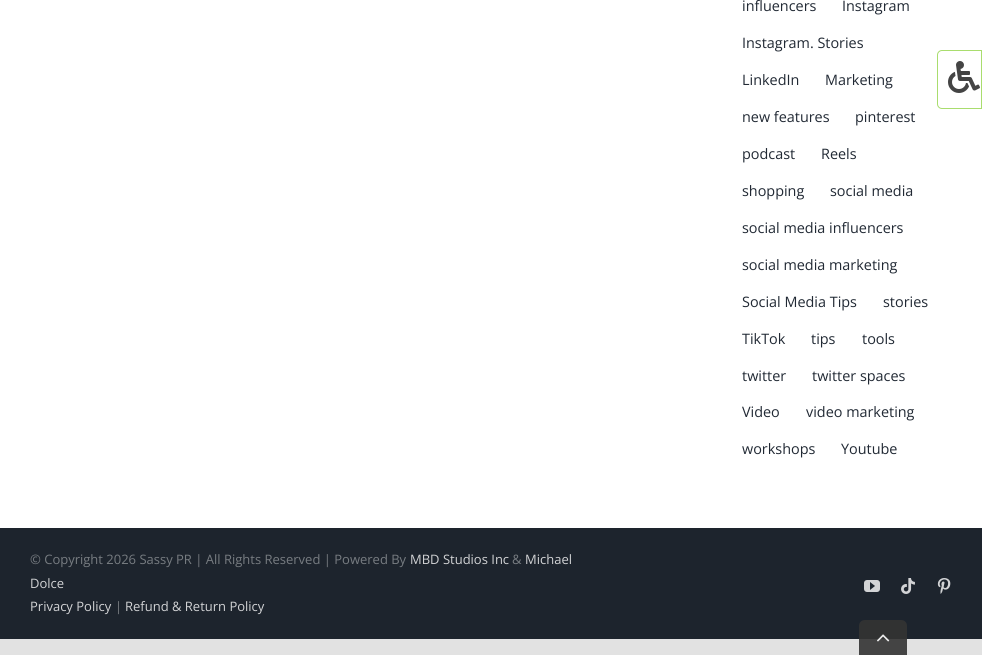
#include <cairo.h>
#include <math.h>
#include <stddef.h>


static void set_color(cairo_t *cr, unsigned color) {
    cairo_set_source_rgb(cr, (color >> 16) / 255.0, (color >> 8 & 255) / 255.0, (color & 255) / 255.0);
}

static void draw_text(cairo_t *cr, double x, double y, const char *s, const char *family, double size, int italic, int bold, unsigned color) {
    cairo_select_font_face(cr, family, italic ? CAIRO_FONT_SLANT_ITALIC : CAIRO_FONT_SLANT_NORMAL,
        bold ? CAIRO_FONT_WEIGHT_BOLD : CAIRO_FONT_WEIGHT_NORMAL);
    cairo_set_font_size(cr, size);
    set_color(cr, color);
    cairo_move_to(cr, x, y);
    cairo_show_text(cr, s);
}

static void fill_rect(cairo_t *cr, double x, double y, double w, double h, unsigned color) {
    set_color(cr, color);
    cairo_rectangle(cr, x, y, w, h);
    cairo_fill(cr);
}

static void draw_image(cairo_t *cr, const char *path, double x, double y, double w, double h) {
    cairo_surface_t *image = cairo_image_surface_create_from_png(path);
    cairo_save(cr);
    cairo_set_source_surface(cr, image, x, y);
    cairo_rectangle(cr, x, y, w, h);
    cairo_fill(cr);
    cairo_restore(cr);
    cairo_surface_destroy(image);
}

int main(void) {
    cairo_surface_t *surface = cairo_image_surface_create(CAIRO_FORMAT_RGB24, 982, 655);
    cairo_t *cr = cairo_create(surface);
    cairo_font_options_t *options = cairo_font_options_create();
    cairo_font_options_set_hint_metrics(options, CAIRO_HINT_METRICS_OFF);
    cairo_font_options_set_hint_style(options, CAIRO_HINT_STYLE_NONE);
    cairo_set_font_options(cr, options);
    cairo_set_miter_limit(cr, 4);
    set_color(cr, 0xE2E2E2);
    cairo_paint(cr);
    fill_rect(cr, 0, 0, 982, 528, 0xFFFFFF);
    draw_text(cr, 742, 11, "influencers", "Open Sans", 14.4, 0, 0, 0x212934);
    draw_text(cr, 842, 11, "Instagram", "Open Sans", 14.4, 0, 0, 0x212934);
    draw_text(cr, 742, 48, "Instagram. Stories", "Open Sans", 14.4, 0, 0, 0x212934);
    draw_text(cr, 742, 85, "LinkedIn", "Open Sans", 14.4, 0, 0, 0x212934);
    draw_text(cr, 825, 85, "Marketing", "Open Sans", 14.4, 0, 0, 0x212934);
    draw_text(cr, 742, 122, "new features", "Open Sans", 14.4, 0, 0, 0x212934);
    draw_text(cr, 855, 122, "pinterest", "Open Sans", 14.4, 0, 0, 0x212934);
    draw_text(cr, 742, 159, "podcast", "Open Sans", 14.4, 0, 0, 0x212934);
    draw_text(cr, 821, 159, "Reels", "Open Sans", 14.4, 0, 0, 0x212934);
    draw_text(cr, 742, 196, "shopping", "Open Sans", 14.4, 0, 0, 0x212934);
    draw_text(cr, 830, 196, "social media", "Open Sans", 14.4, 0, 0, 0x212934);
    draw_text(cr, 742, 233, "social media influencers", "Open Sans", 14.4, 0, 0, 0x212934);
    draw_text(cr, 742, 270, "social media marketing", "Open Sans", 14.4, 0, 0, 0x212934);
    draw_text(cr, 742, 307, "Social Media Tips", "Open Sans", 14.4, 0, 0, 0x212934);
    draw_text(cr, 883, 307, "stories", "Open Sans", 14.4, 0, 0, 0x212934);
    draw_text(cr, 742, 344, "TikTok", "Open Sans", 14.4, 0, 0, 0x212934);
    draw_text(cr, 811, 344, "tips", "Open Sans", 14.4, 0, 0, 0x212934);
    draw_text(cr, 862, 344, "tools", "Open Sans", 14.4, 0, 0, 0x212934);
    draw_text(cr, 742, 381, "twitter", "Open Sans", 14.4, 0, 0, 0x212934);
    draw_text(cr, 812, 381, "twitter spaces", "Open Sans", 14.4, 0, 0, 0x212934);
    draw_text(cr, 742, 417, "Video", "Open Sans", 14.4, 0, 0, 0x212934);
    draw_text(cr, 806, 417, "video marketing", "Open Sans", 14.4, 0, 0, 0x212934);
    draw_text(cr, 742, 454, "workshops", "Open Sans", 14.4, 0, 0, 0x212934);
    draw_text(cr, 841, 454, "Youtube", "Open Sans", 14.4, 0, 0, 0x212934);
    fill_rect(cr, 0, 528, 982, 111, 0x1D242D);
    draw_text(cr, 30, 564, "© Copyright 2026 Sassy PR | All Rights Reserved | Powered By", "Open Sans", 13, 0, 0, 0x777C81);
    draw_text(cr, 410, 564, "MBD Studios Inc", "Open Sans", 13, 0, 0, 0xD2D3D5);
    draw_text(cr, 512, 564, "&", "Open Sans", 13, 0, 0, 0x777C81);
    draw_text(cr, 525, 564, "Michael", "Open Sans", 13, 0, 0, 0xD2D3D5);
    draw_text(cr, 30, 588, "Dolce", "Open Sans", 13, 0, 0, 0xD2D3D5);
    draw_text(cr, 30, 611, "Privacy Policy", "Open Sans", 13, 0, 0, 0xD2D3D5);
    draw_text(cr, 115, 611, "|", "Open Sans", 13, 0, 0, 0x777C81);
    draw_text(cr, 125, 611, "Refund & Return Policy", "Open Sans", 13, 0, 0, 0xD2D3D5);
    draw_image(cr, "assets/img1.png", 864, 580, 16, 12);
    draw_image(cr, "assets/img2.png", 901, 578, 14, 16);
    draw_image(cr, "assets/img3.png", 937, 578, 14, 16);
    cairo_new_path(cr);
    cairo_move_to(cr, 942, 50.5);
    cairo_line_to(cr, 981.5, 50.5);
    cairo_line_to(cr, 981.5, 108.5);
    cairo_line_to(cr, 942, 108.5);
    cairo_curve_to(cr, 939.5, 108.5, 937.5, 106.5, 937.5, 104);
    cairo_line_to(cr, 937.5, 55);
    cairo_curve_to(cr, 937.5, 52.5, 939.5, 50.5, 942, 50.5);
    cairo_close_path(cr);
    set_color(cr, 0xA9DD6E);
    cairo_set_line_width(cr, 1);
    cairo_stroke(cr);
    draw_image(cr, "assets/img4.png", 948, 61, 32, 32);
    cairo_set_source_rgba(cr, 0.2, 0.2, 0.2, 0.9);
    cairo_new_path(cr);
    cairo_move_to(cr, 865, 620);
    cairo_line_to(cr, 901, 620);
    cairo_curve_to(cr, 904.5, 620, 907, 622.5, 907, 626);
    cairo_line_to(cr, 907, 655);
    cairo_line_to(cr, 859, 655);
    cairo_line_to(cr, 859, 626);
    cairo_curve_to(cr, 859, 622.5, 861.5, 620, 865, 620);
    cairo_close_path(cr);
    cairo_fill(cr);
    draw_image(cr, "assets/img5.png", 877, 634, 13, 8);
    cairo_surface_write_to_png(surface, "output.png");
    cairo_font_options_destroy(options);
    cairo_destroy(cr);
    cairo_surface_destroy(surface);
    return 0;
}
